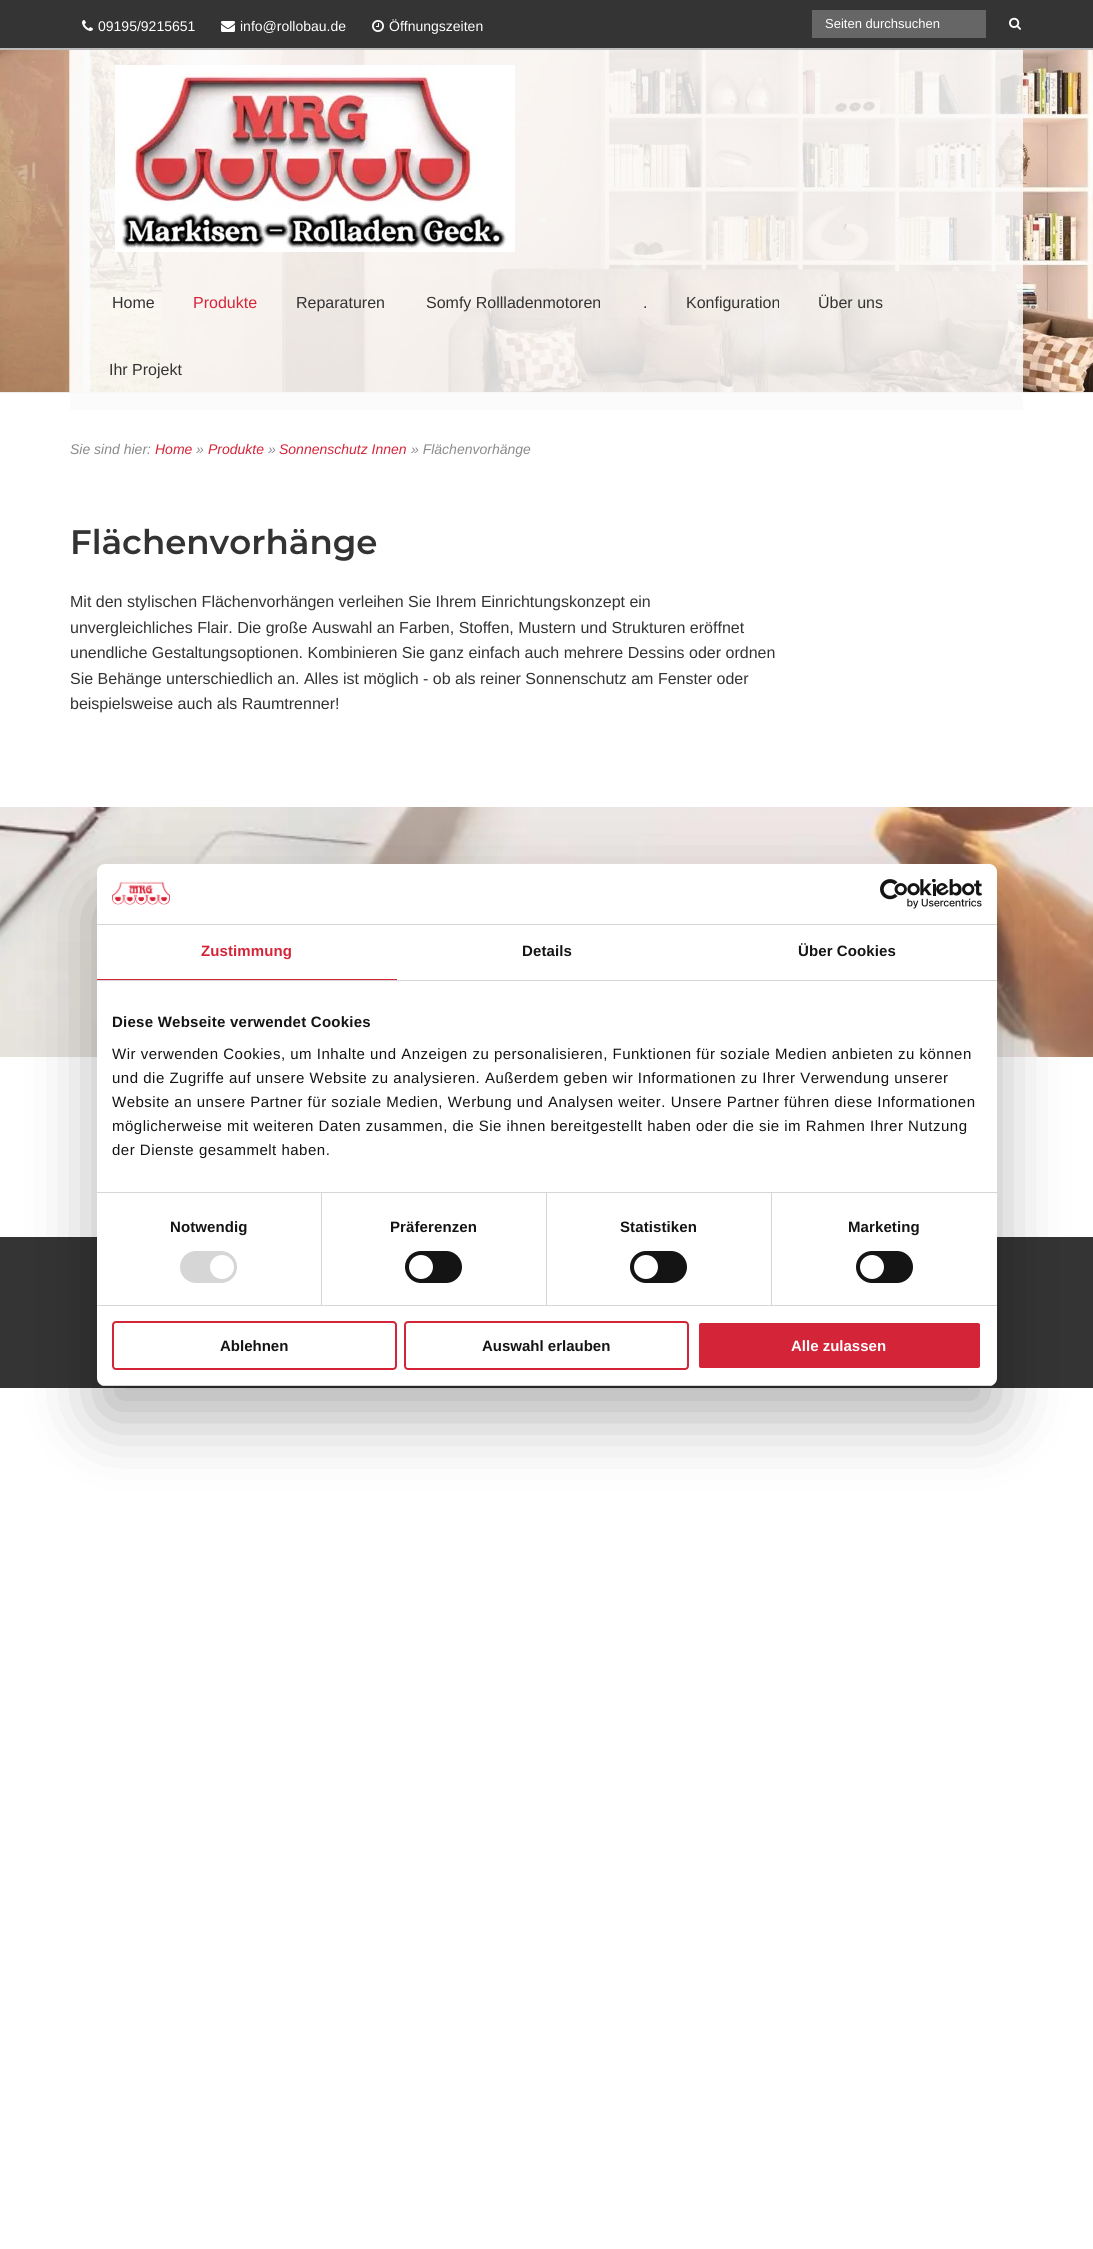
#include <cairo.h>
#include <math.h>
#include <stddef.h>


static void set_color(cairo_t *cr, unsigned color) {
    cairo_set_source_rgb(cr, (color >> 16) / 255.0, (color >> 8 & 255) / 255.0, (color & 255) / 255.0);
}

static void draw_text(cairo_t *cr, double x, double y, const char *s, const char *family, double size, int italic, int bold, unsigned color) {
    cairo_select_font_face(cr, family, italic ? CAIRO_FONT_SLANT_ITALIC : CAIRO_FONT_SLANT_NORMAL,
        bold ? CAIRO_FONT_WEIGHT_BOLD : CAIRO_FONT_WEIGHT_NORMAL);
    cairo_set_font_size(cr, size);
    set_color(cr, color);
    cairo_move_to(cr, x, y);
    cairo_show_text(cr, s);
}

static void draw_spaced(cairo_t *cr, double x, double y, const char *s, double letter, double word) {
    cairo_move_to(cr, x, y);
    while (*s) {
        char ch[5] = {0};
        int n = 0;
        do ch[n++] = *s++; while ((*s & 0xC0) == 0x80);
        cairo_show_text(cr, ch);
        cairo_rel_move_to(cr, letter + word * (*ch == ' '), 0);
    }
}

static void fill_rect(cairo_t *cr, double x, double y, double w, double h, unsigned color) {
    set_color(cr, color);
    cairo_rectangle(cr, x, y, w, h);
    cairo_fill(cr);
}

static void rounded_rect(cairo_t *cr, double x, double y, double w, double h, double r) {
    cairo_new_sub_path(cr);
    cairo_arc(cr, x + w - r, y + h - r, r, 0, M_PI / 2);
    cairo_arc(cr, x + r, y + h - r, r, M_PI / 2, M_PI);
    cairo_arc(cr, x + r, y + r, r, M_PI, 1.5 * M_PI);
    cairo_arc(cr, x + w - r, y + r, r, 1.5 * M_PI, 2 * M_PI);
    cairo_close_path(cr);
}

static void draw_shadow(cairo_t *cr, double x, double y, double w, double h, double r, double blur, double alpha) {
    cairo_push_group_with_content(cr, CAIRO_CONTENT_ALPHA);
    cairo_set_operator(cr, CAIRO_OPERATOR_SOURCE);
    for (int i = 15; i >= -15 && fmin(w, h) + blur * i / 3 > 0; i -= 2) {
        double e = blur * i / 6;
        cairo_set_source_rgba(cr, 0, 0, 0, alpha * erfc((i - 1) / 8.5) / 2);
        rounded_rect(cr, x - e, y - e, w + 2 * e, h + 2 * e, fmax(0, fmin(r + e + blur * .6, fmin(w, h) / 2 + e)));
        cairo_fill(cr);
    }
    cairo_pattern_t *soft = cairo_pop_group(cr);
    cairo_mask(cr, soft);
    cairo_pattern_destroy(soft);
}

static void draw_image(cairo_t *cr, const char *path, double x, double y, double w, double h) {
    cairo_surface_t *image = cairo_image_surface_create_from_png(path);
    cairo_save(cr);
    cairo_set_source_surface(cr, image, x, y);
    cairo_rectangle(cr, x, y, w, h);
    cairo_fill(cr);
    cairo_restore(cr);
    cairo_surface_destroy(image);
}

int main(void) {
    cairo_surface_t *surface = cairo_image_surface_create(CAIRO_FORMAT_RGB24, 1093, 2249);
    cairo_t *cr = cairo_create(surface);
    cairo_font_options_t *options = cairo_font_options_create();
    cairo_font_options_set_hint_metrics(options, CAIRO_HINT_METRICS_OFF);
    cairo_font_options_set_hint_style(options, CAIRO_HINT_STYLE_NONE);
    cairo_set_font_options(cr, options);
    cairo_set_miter_limit(cr, 4);
    set_color(cr, 0xFFFFFF);
    cairo_paint(cr);
    fill_rect(cr, 0, 0, 1093, 48, 0x343434);
    fill_rect(cr, 0, 48, 1093, 2, 0xBDBCBD);
    draw_image(cr, "assets/img1.png", 82, 20, 11, 11);
    draw_text(cr, 98, 31, "09195/9215651", "Liberation Sans", 14, 0, 0, 0xFFFFFF);
    draw_image(cr, "assets/img2.png", 221, 21, 14, 11);
    draw_text(cr, 240, 31, "info@rollobau.de", "Liberation Sans", 14, 0, 0, 0xFFFFFF);
    draw_image(cr, "assets/img3.png", 372, 20, 12, 12);
    draw_text(cr, 389, 31, "Öffnungszeiten", "Liberation Sans", 14, 0, 0, 0xFFFFFF);
    fill_rect(cr, 812, 10, 174, 28, 0x666666);
    draw_text(cr, 825, 28, "Seiten durchsuchen", "Liberation Sans", 13, 0, 0, 0xFFFFFF);
    draw_image(cr, "assets/img4.png", 1009, 17, 12, 13);
    fill_rect(cr, 0, 392, 1093, 1, 0xEEEEEE);
    draw_image(cr, "assets/img5.png", 0, 50, 1093, 342);
    cairo_set_source_rgba(cr, 0.98, 0.98, 0.98, 0.85);
    cairo_rectangle(cr, 70, 50, 953, 360);
    cairo_fill(cr);
    draw_image(cr, "assets/img6.png", 115, 65, 400, 187);
    draw_text(cr, 112, 308, "Home", "Liberation Sans", 16, 0, 0, 0x333333);
    draw_text(cr, 193, 308, "Produkte", "Liberation Sans", 16, 0, 0, 0xD42538);
    draw_text(cr, 296, 308, "Reparaturen", "Liberation Sans", 16, 0, 0, 0x333333);
    draw_text(cr, 426, 308, "Somfy Rollladenmotoren", "Liberation Sans", 16, 0, 0, 0x333333);
    draw_text(cr, 643, 308, ".", "Liberation Sans", 16, 0, 0, 0x333333);
    draw_text(cr, 686, 308, "Konfiguration", "Liberation Sans", 16, 0, 0, 0x333333);
    draw_text(cr, 818, 308, "Über uns", "Liberation Sans", 16, 0, 0, 0x333333);
    draw_text(cr, 109, 375, "Ihr Projekt", "Liberation Sans", 16, 0, 0, 0x333333);
    draw_text(cr, 70, 454, "Sie sind hier:", "Liberation Sans", 14, 1, 0, 0x8B8B8B);
    draw_text(cr, 155, 454, "Home", "Liberation Sans", 14, 1, 0, 0xD42538);
    draw_text(cr, 196, 454, "»", "Liberation Sans", 14, 1, 0, 0x8B8B8B);
    draw_text(cr, 208, 454, "Produkte", "Liberation Sans", 14, 1, 0, 0xD42538);
    draw_text(cr, 268, 454, "»", "Liberation Sans", 14, 1, 0, 0x8B8B8B);
    draw_text(cr, 279, 454, "Sonnenschutz Innen", "Liberation Sans", 14, 1, 0, 0xD42538);
    draw_text(cr, 411, 454, "» Flächenvorhänge", "Liberation Sans", 14, 1, 0, 0x8B8B8B);
    draw_text(cr, 70, 554, "Flächenvorhänge", "Montserrat Thin", 34, 0, 0, 0x333333);
    draw_text(cr, 70, 607, "Mit den stylischen Flächenvorhängen verleihen Sie Ihrem Einrichtungskonzept ein", "Liberation Sans", 16, 0, 0, 0x333333);
    draw_text(cr, 70, 633, "unvergleichliches Flair. Die große Auswahl an Farben, Stoffen, Mustern und Strukturen eröffnet", "Liberation Sans", 16, 0, 0, 0x333333);
    draw_text(cr, 70, 658, "unendliche Gestaltungsoptionen. Kombinieren Sie ganz einfach auch mehrere Dessins oder ordnen", "Liberation Sans", 16, 0, 0, 0x333333);
    draw_text(cr, 70, 684, "Sie Behänge unterschiedlich an. Alles ist möglich - ob als reiner Sonnenschutz am Fenster oder", "Liberation Sans", 16, 0, 0, 0x333333);
    draw_text(cr, 70, 709, "beispielsweise auch als Raumtrenner!", "Liberation Sans", 16, 0, 0, 0x333333);
    draw_image(cr, "assets/img7.png", 0, 807, 1093, 250);
    fill_rect(cr, 0, 1237, 1093, 151, 0x343434);
    set_color(cr, 0x000000);
    draw_shadow(cr, 97, 896, 900, 522, 8, 34, 0.3);
    set_color(cr, 0xFFFFFF);
    rounded_rect(cr, 97, 864, 900, 522, 8);
    cairo_fill(cr);
    fill_rect(cr, 97, 924, 900, 1, 0xD6D6D6);
    draw_image(cr, "assets/img8.png", 112, 881, 59, 24);
    draw_image(cr, "assets/img9.png", 880, 879, 102, 30);
    fill_rect(cr, 97, 980, 900, 1, 0xD6D6D6);
    fill_rect(cr, 97, 979, 300, 1, 0xD42538);
    cairo_select_font_face(cr, "Liberation Sans", CAIRO_FONT_SLANT_NORMAL, CAIRO_FONT_WEIGHT_BOLD);
    cairo_set_font_size(cr, 15);
    draw_spaced(cr, 201, 956, "Zustimmung", 0.1, 0);
    set_color(cr, 0x141414);
    draw_spaced(cr, 522, 956, "Details", 0.1, 0);
    draw_spaced(cr, 798, 956, "Über Cookies", 0.1, 0);
    fill_rect(cr, 97, 1192, 900, 1, 0xD6D6D6);
    set_color(cr, 0x141414);
    draw_spaced(cr, 112, 1027, "Diese Webseite verwendet Cookies", 0.25, 0);
    cairo_select_font_face(cr, "Liberation Sans", CAIRO_FONT_SLANT_NORMAL, CAIRO_FONT_WEIGHT_NORMAL);
    draw_spaced(cr, 112, 1059, "Wir verwenden Cookies, um Inhalte und Anzeigen zu personalisieren, Funktionen für soziale Medien anbieten zu können", 0.5, 0);
    draw_spaced(cr, 112, 1083, "und die Zugriffe auf unsere Website zu analysieren. Außerdem geben wir Informationen zu Ihrer Verwendung unserer", 0.5, 0);
    draw_spaced(cr, 112, 1107, "Website an unsere Partner für soziale Medien, Werbung und Analysen weiter. Unsere Partner führen diese Informationen", 0.5, 0);
    draw_spaced(cr, 112, 1131, "möglicherweise mit weiteren Daten zusammen, die Sie ihnen bereitgestellt haben oder die sie im Rahmen Ihrer Nutzung", 0.5, 0);
    draw_spaced(cr, 112, 1155, "der Dienste gesammelt haben.", 0.5, 0);
    fill_rect(cr, 97, 1305, 900, 1, 0xD6D6D6);
    fill_rect(cr, 321, 1193, 1, 112, 0xD6D6D6);
    cairo_select_font_face(cr, "Liberation Sans", CAIRO_FONT_SLANT_NORMAL, CAIRO_FONT_WEIGHT_BOLD);
    set_color(cr, 0x141414);
    draw_spaced(cr, 170, 1232, "Notwendig", 0.1, 0);
    set_color(cr, 0xD6D6D6);
    rounded_rect(cr, 180, 1251, 57, 32, 16);
    cairo_fill(cr);
    set_color(cr, 0xFFFFFF);
    cairo_arc(cr, 222, 1267, 12, 0, 2 * M_PI);
    cairo_fill(cr);
    fill_rect(cr, 546, 1193, 1, 112, 0xD6D6D6);
    set_color(cr, 0x141414);
    draw_spaced(cr, 390, 1232, "Präferenzen", 0.1, 0);
    rounded_rect(cr, 405, 1251, 57, 32, 16);
    cairo_fill(cr);
    set_color(cr, 0xFFFFFF);
    cairo_arc(cr, 421, 1267, 12, 0, 2 * M_PI);
    cairo_fill(cr);
    fill_rect(cr, 771, 1193, 1, 112, 0xD6D6D6);
    set_color(cr, 0x141414);
    draw_spaced(cr, 620, 1232, "Statistiken", 0.1, 0);
    rounded_rect(cr, 630, 1251, 57, 32, 16);
    cairo_fill(cr);
    set_color(cr, 0xFFFFFF);
    cairo_arc(cr, 646, 1267, 12, 0, 2 * M_PI);
    cairo_fill(cr);
    set_color(cr, 0x141414);
    draw_spaced(cr, 848, 1232, "Marketing", 0.1, 0);
    rounded_rect(cr, 856, 1251, 57, 32, 16);
    cairo_fill(cr);
    set_color(cr, 0xFFFFFF);
    cairo_arc(cr, 872, 1267, 12, 0, 2 * M_PI);
    cairo_fill(cr);
    cairo_save(cr);
    rounded_rect(cr, 97, 864, 900, 522, 8);
    cairo_clip(cr);
    fill_rect(cr, 97, 1385, 900, 1, 0xD6D6D6);
    cairo_restore(cr);
    rounded_rect(cr, 113, 1322, 283, 47, 3);
    set_color(cr, 0xD42538);
    cairo_stroke(cr);
    draw_text(cr, 220, 1351, "Ablehnen", "Liberation Sans", 15, 0, 1, 0x141414);
    rounded_rect(cr, 405, 1322, 283, 47, 3);
    set_color(cr, 0xD42538);
    cairo_stroke(cr);
    draw_text(cr, 482, 1351, "Auswahl erlauben", "Liberation Sans", 15, 0, 1, 0x141414);
    set_color(cr, 0xD42538);
    rounded_rect(cr, 698, 1322, 283, 47, 3);
    cairo_fill_preserve(cr);
    set_color(cr, 0xFFFFFF);
    cairo_stroke(cr);
    draw_text(cr, 791, 1351, "Alle zulassen", "Liberation Sans", 15, 0, 1, 0xFFFFFF);
    cairo_surface_write_to_png(surface, "output.png");
    cairo_font_options_destroy(options);
    cairo_destroy(cr);
    cairo_surface_destroy(surface);
    return 0;
}
